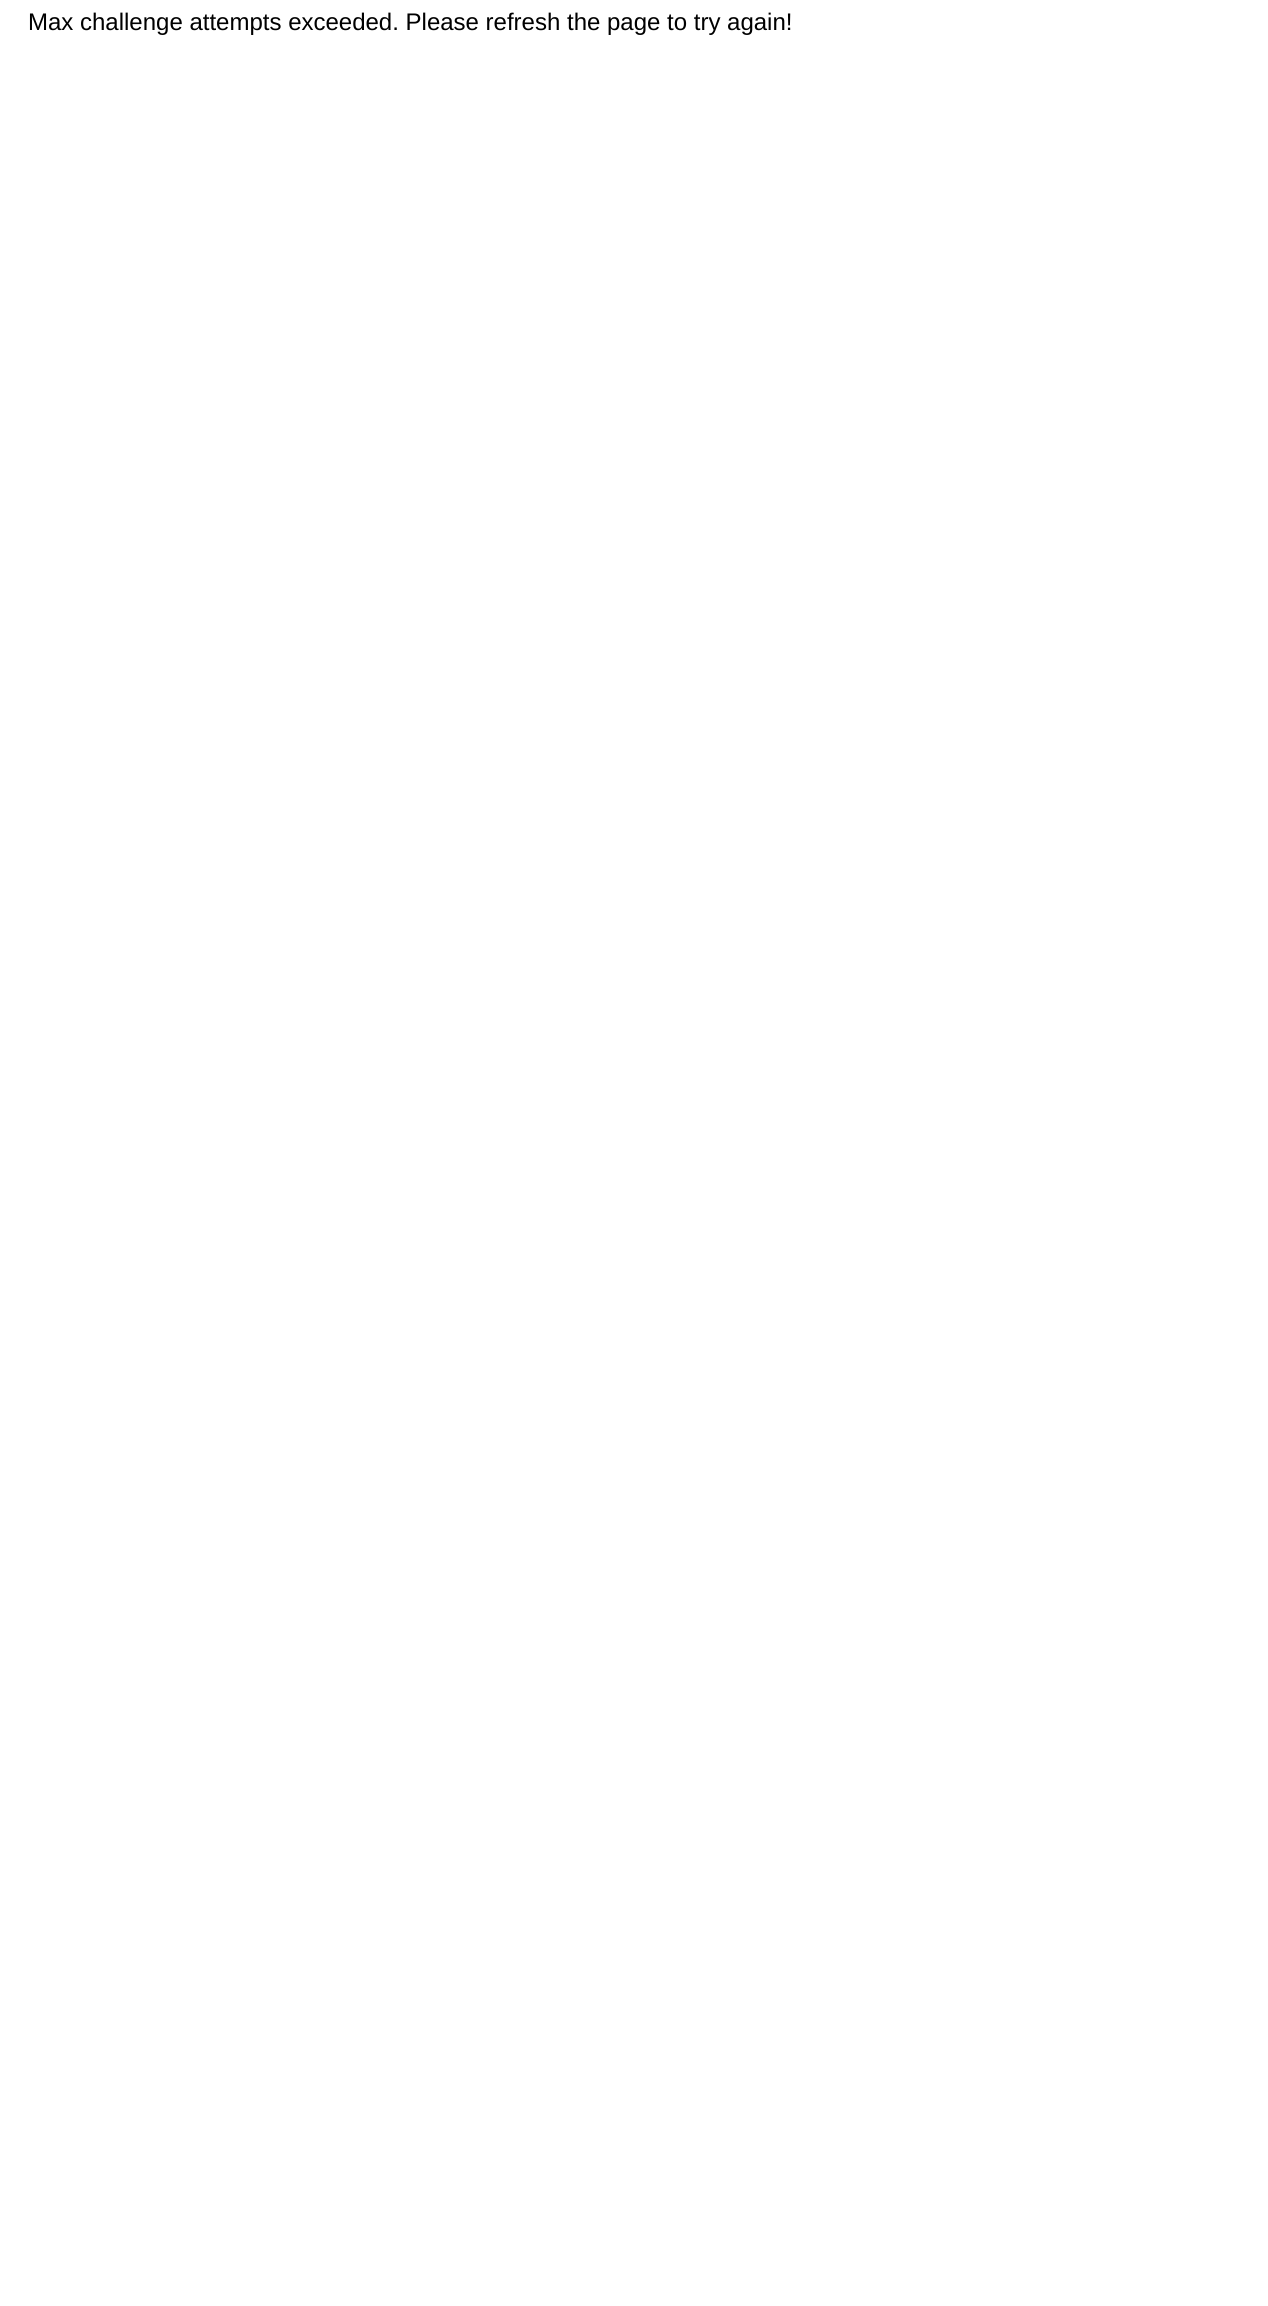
#include <cairo.h>
#include <math.h>
#include <stddef.h>


static void set_color(cairo_t *cr, unsigned color) {
    cairo_set_source_rgb(cr, (color >> 16) / 255.0, (color >> 8 & 255) / 255.0, (color & 255) / 255.0);
}

static void draw_text(cairo_t *cr, double x, double y, const char *s, const char *family, double size, int italic, int bold, unsigned color) {
    cairo_select_font_face(cr, family, italic ? CAIRO_FONT_SLANT_ITALIC : CAIRO_FONT_SLANT_NORMAL,
        bold ? CAIRO_FONT_WEIGHT_BOLD : CAIRO_FONT_WEIGHT_NORMAL);
    cairo_set_font_size(cr, size);
    set_color(cr, color);
    cairo_move_to(cr, x, y);
    cairo_show_text(cr, s);
}

int main(void) {
    cairo_surface_t *surface = cairo_image_surface_create(CAIRO_FORMAT_RGB24, 1268, 2306);
    cairo_t *cr = cairo_create(surface);
    cairo_font_options_t *options = cairo_font_options_create();
    cairo_font_options_set_hint_metrics(options, CAIRO_HINT_METRICS_OFF);
    cairo_font_options_set_hint_style(options, CAIRO_HINT_STYLE_NONE);
    cairo_set_font_options(cr, options);
    cairo_set_miter_limit(cr, 4);
    set_color(cr, 0xFFFFFF);
    cairo_paint(cr);
    draw_text(cr, 28, 30, "Max challenge attempts exceeded. Please refresh the page to try again!", "Liberation Sans", 24, 0, 0, 0x000000);
    cairo_surface_write_to_png(surface, "output.png");
    cairo_font_options_destroy(options);
    cairo_destroy(cr);
    cairo_surface_destroy(surface);
    return 0;
}
